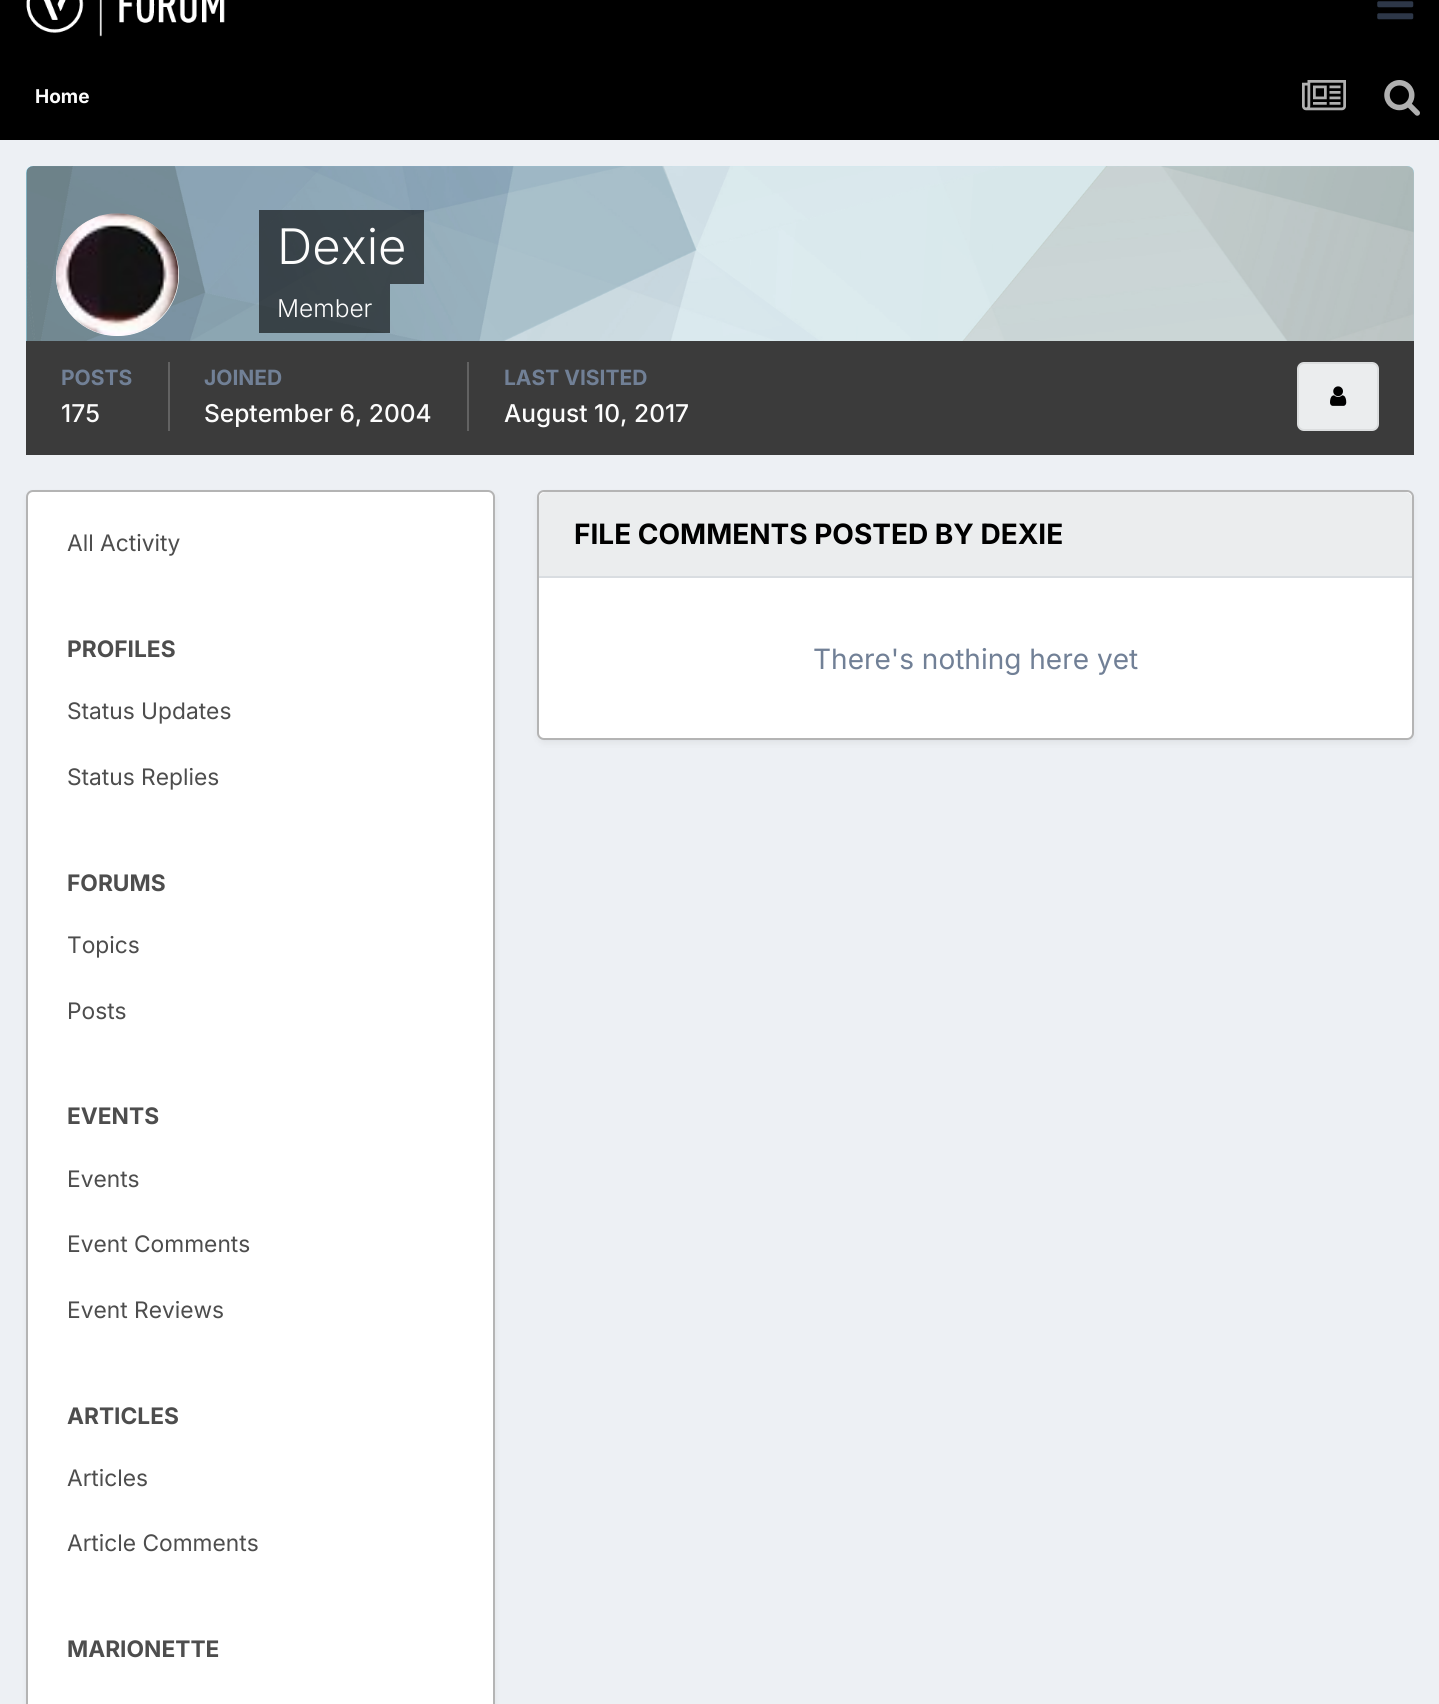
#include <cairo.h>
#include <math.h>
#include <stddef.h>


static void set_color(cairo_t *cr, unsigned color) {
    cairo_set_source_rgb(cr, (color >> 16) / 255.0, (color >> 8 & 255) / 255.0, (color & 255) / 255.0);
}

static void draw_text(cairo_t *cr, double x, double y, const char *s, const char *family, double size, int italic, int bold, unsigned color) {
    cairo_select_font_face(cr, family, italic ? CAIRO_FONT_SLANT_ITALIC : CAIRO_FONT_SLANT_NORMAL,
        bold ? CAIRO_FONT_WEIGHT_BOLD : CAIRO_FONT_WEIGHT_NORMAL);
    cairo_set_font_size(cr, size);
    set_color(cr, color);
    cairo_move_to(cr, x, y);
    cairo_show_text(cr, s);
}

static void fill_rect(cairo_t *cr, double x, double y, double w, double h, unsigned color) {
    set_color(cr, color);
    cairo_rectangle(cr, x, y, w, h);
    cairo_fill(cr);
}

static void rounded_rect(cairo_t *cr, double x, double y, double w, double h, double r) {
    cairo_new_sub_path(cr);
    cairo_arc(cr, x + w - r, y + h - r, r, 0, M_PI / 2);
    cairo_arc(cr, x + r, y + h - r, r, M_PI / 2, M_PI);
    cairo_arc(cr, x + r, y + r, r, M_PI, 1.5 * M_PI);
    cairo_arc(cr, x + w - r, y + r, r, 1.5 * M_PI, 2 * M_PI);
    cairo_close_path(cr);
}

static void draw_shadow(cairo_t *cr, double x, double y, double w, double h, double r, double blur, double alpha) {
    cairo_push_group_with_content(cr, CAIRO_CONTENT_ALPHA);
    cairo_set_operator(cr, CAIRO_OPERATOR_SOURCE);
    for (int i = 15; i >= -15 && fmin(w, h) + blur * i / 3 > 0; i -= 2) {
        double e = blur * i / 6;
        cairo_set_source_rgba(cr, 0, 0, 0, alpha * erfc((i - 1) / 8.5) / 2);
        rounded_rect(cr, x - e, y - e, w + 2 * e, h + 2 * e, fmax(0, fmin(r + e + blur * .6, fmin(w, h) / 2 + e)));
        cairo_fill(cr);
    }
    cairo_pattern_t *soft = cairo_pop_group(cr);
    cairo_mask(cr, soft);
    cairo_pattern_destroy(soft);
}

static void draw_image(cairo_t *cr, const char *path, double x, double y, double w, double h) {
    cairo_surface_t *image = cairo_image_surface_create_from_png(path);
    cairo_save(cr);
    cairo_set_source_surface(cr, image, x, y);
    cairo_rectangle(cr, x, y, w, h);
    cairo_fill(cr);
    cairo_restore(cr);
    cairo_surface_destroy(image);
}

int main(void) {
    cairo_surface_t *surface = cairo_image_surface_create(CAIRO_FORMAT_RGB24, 1439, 1704);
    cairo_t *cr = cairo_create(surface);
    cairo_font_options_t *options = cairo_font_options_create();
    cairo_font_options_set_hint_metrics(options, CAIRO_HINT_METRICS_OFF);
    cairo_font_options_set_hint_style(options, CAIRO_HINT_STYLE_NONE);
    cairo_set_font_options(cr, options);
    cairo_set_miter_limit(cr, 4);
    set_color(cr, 0xEDF0F4);
    cairo_paint(cr);
    fill_rect(cr, 0, 0, 1439, 140, 0x000000);
    draw_image(cr, "assets/img1.png", 26, 0, 199, 37);
    draw_image(cr, "assets/img2.png", 1377, 1, 37, 19);
    draw_text(cr, 35, 103, "Home", "Inter", 19, 0, 1, 0xFCFCFC);
    draw_image(cr, "assets/img3.png", 1302, 80, 44, 31);
    draw_image(cr, "assets/img4.png", 1384, 80, 36, 36);
    set_color(cr, 0x99E6FF);
    cairo_new_path(cr);
    cairo_move_to(cr, 33, 166);
    cairo_line_to(cr, 1407, 166);
    cairo_curve_to(cr, 1411, 166, 1414, 169, 1414, 173);
    cairo_line_to(cr, 1414, 341);
    cairo_line_to(cr, 26, 341);
    cairo_line_to(cr, 26, 173);
    cairo_curve_to(cr, 26, 169, 29, 166, 33, 166);
    cairo_close_path(cr);
    cairo_fill(cr);
    draw_image(cr, "assets/img5.png", 26, 166, 1388, 175);
    set_color(cr, 0xFFFFFF);
    rounded_rect(cr, 56, 214, 123, 122, 61);
    cairo_fill(cr);
    draw_image(cr, "assets/img6.png", 56, 213, 123, 123);
    cairo_set_source_rgba(cr, 0, 0, 0, 0.6);
    cairo_rectangle(cr, 259, 210, 165, 74);
    cairo_fill(cr);
    draw_text(cr, 277, 264, "Dexie", "Inter Light", 49, 0, 0, 0xFCFCFC);
    cairo_set_source_rgba(cr, 0, 0, 0, 0.6);
    cairo_rectangle(cr, 259, 284, 131, 49);
    cairo_fill(cr);
    draw_text(cr, 277, 317, "Member", "Inter Light", 24.5, 0, 0, 0xFCFCFC);
    fill_rect(cr, 26, 341, 1388, 114, 0x3B3B3B);
    fill_rect(cr, 168, 362, 2, 69, 0x626262);
    draw_text(cr, 61, 385, "POSTS", "Inter", 21, 0, 1, 0x718096);
    draw_text(cr, 61, 422, "175", "Inter Medium", 24.5, 0, 0, 0xFCFCFC);
    fill_rect(cr, 467, 362, 2, 69, 0x626262);
    draw_text(cr, 204, 385, "JOINED", "Inter", 21, 0, 1, 0x718096);
    draw_text(cr, 204, 422, "September 6, 2004", "Inter Medium", 24.5, 0, 0, 0xFCFCFC);
    draw_text(cr, 504, 385, "LAST VISITED", "Inter", 21, 0, 1, 0x718096);
    draw_text(cr, 504, 422, "August 10, 2017", "Inter Medium", 24.5, 0, 0, 0xFCFCFC);
    set_color(cr, 0xEBEDEE);
    rounded_rect(cr, 1297, 362, 82, 69, 7);
    cairo_fill(cr);
    rounded_rect(cr, 1298, 363, 80, 67, 6);
    cairo_set_source_rgba(cr, 0, 0, 0, 0.07);
    cairo_stroke(cr);
    draw_image(cr, "assets/img7.png", 1330, 386, 17, 20);
    set_color(cr, 0x3B3B3B);
    draw_shadow(cr, 28, 495, 466, 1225, 5, 3.5, 0.1);
    set_color(cr, 0xFFFFFF);
    rounded_rect(cr, 27, 491, 467, 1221, 6);
    cairo_fill_preserve(cr);
    set_color(cr, 0xB4B4B4);
    cairo_stroke(cr);
    draw_text(cr, 67, 551, "All Activity", "Inter", 22.75, 0, 0, 0x4D4D4D);
    draw_text(cr, 67, 657, "PROFILES", "Inter", 22.75, 0, 1, 0x4D4D4D);
    draw_text(cr, 67, 719, "Status Updates", "Inter", 22.75, 0, 0, 0x4D4D4D);
    draw_text(cr, 67, 785, "Status Replies", "Inter", 22.75, 0, 0, 0x4D4D4D);
    draw_text(cr, 67, 891, "FORUMS", "Inter", 22.75, 0, 1, 0x4D4D4D);
    draw_text(cr, 67, 953, "Topics", "Inter", 22.75, 0, 0, 0x4D4D4D);
    draw_text(cr, 67, 1019, "Posts", "Inter", 22.75, 0, 0, 0x4D4D4D);
    draw_text(cr, 67, 1124, "EVENTS", "Inter", 22.75, 0, 1, 0x4D4D4D);
    draw_text(cr, 67, 1187, "Events", "Inter", 22.75, 0, 0, 0x4D4D4D);
    draw_text(cr, 67, 1252, "Event Comments", "Inter", 22.75, 0, 0, 0x4D4D4D);
    draw_text(cr, 67, 1318, "Event Reviews", "Inter", 22.75, 0, 0, 0x4D4D4D);
    draw_text(cr, 67, 1424, "ARTICLES", "Inter", 22.75, 0, 1, 0x4D4D4D);
    draw_text(cr, 67, 1486, "Articles", "Inter", 22.75, 0, 0, 0x4D4D4D);
    draw_text(cr, 67, 1551, "Article Comments", "Inter", 22.75, 0, 0, 0x4D4D4D);
    draw_text(cr, 67, 1657, "MARIONETTE", "Inter", 22.75, 0, 1, 0x4D4D4D);
    set_color(cr, 0x3B3B3B);
    draw_shadow(cr, 539, 495, 873, 247, 5, 3.5, 0.1);
    set_color(cr, 0xFFFFFF);
    rounded_rect(cr, 538, 491, 875, 248, 6);
    cairo_fill_preserve(cr);
    set_color(cr, 0xB4B4B4);
    cairo_stroke(cr);
    set_color(cr, 0xEBEDEE);
    cairo_new_path(cr);
    cairo_move_to(cr, 546, 492);
    cairo_line_to(cr, 1405, 492);
    cairo_curve_to(cr, 1409, 492, 1412, 495, 1412, 499);
    cairo_line_to(cr, 1412, 578);
    cairo_line_to(cr, 539, 578);
    cairo_line_to(cr, 539, 499);
    cairo_curve_to(cr, 539, 495, 542, 492, 546, 492);
    cairo_close_path(cr);
    cairo_fill(cr);
    fill_rect(cr, 539, 576, 873, 2, 0xD9DDE1);
    draw_text(cr, 574, 544, "FILE COMMENTS POSTED BY DEXIE", "Inter", 28, 0, 1, 0x000000);
    draw_text(cr, 813, 669, "There's nothing here yet", "Inter", 28, 0, 0, 0x718096);
    cairo_surface_write_to_png(surface, "output.png");
    cairo_font_options_destroy(options);
    cairo_destroy(cr);
    cairo_surface_destroy(surface);
    return 0;
}
